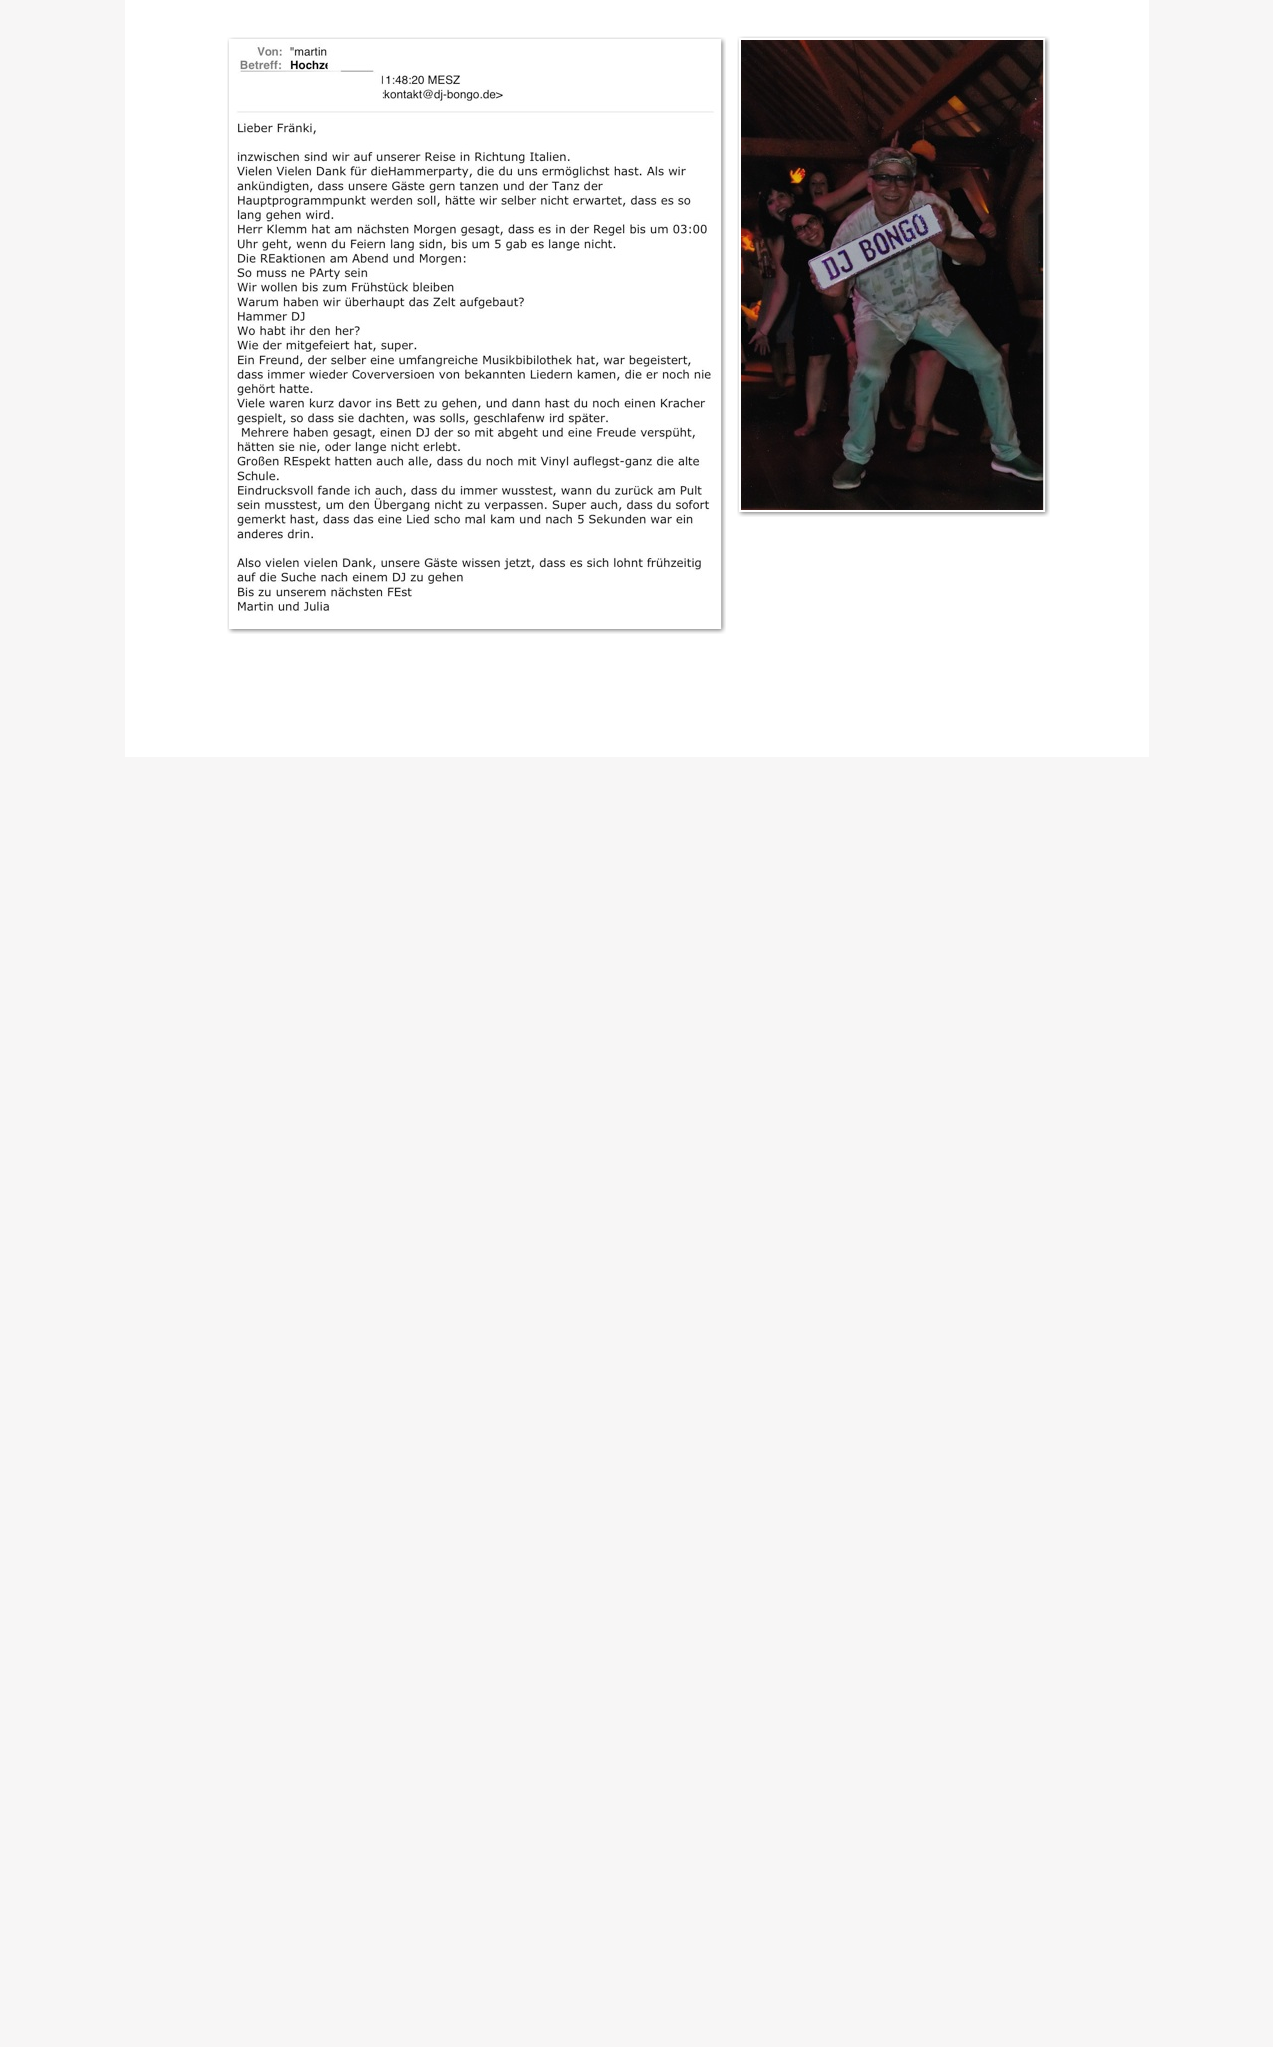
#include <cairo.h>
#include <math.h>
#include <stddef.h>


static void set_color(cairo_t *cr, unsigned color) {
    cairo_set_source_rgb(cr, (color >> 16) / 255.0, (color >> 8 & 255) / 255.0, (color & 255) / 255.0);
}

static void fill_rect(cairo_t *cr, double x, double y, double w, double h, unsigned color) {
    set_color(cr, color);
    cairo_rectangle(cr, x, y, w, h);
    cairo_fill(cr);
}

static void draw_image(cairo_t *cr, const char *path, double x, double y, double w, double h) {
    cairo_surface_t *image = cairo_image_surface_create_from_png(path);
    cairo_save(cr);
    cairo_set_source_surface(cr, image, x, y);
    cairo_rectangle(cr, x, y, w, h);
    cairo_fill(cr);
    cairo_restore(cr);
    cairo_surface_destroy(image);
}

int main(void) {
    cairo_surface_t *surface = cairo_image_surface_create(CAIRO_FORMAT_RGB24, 1273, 2047);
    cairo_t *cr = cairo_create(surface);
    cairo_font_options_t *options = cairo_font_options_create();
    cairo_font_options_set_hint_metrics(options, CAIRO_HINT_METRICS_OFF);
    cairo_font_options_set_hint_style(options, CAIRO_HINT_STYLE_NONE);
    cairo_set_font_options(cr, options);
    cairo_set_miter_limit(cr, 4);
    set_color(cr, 0xF7F6F6);
    cairo_paint(cr);
    fill_rect(cr, 125, 0, 1024, 757, 0xFFFFFF);
    draw_image(cr, "assets/img1.png", 227, 37, 499, 597);
    draw_image(cr, "assets/img2.png", 737, 36, 313, 481);
    cairo_surface_write_to_png(surface, "output.png");
    cairo_font_options_destroy(options);
    cairo_destroy(cr);
    cairo_surface_destroy(surface);
    return 0;
}
